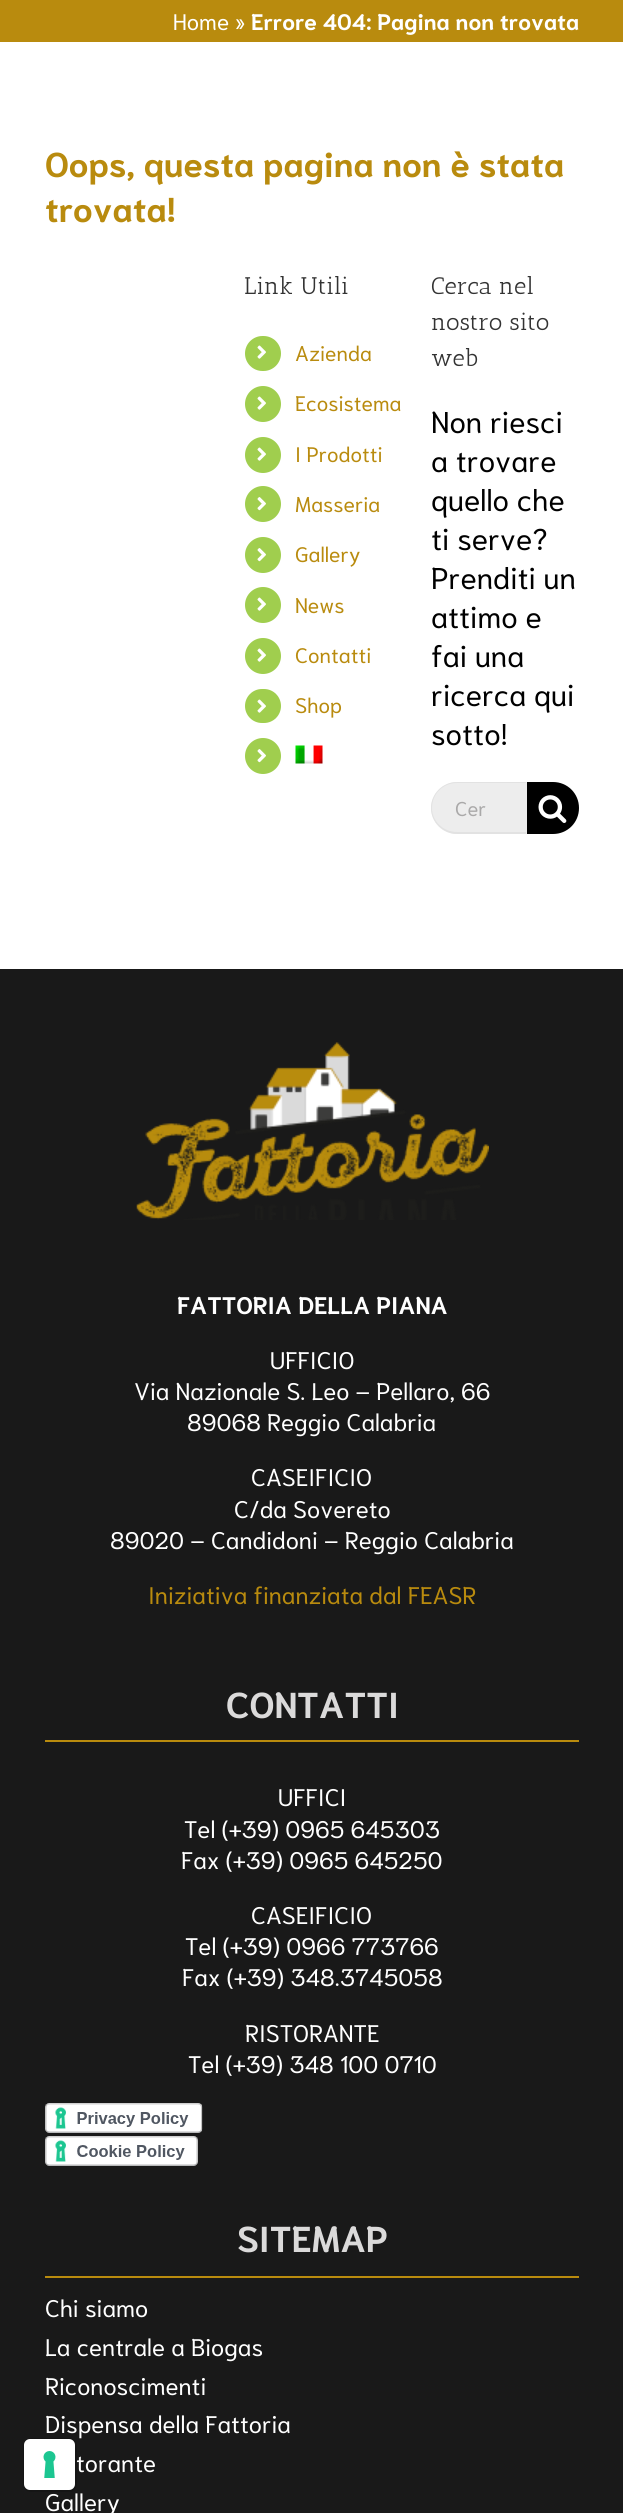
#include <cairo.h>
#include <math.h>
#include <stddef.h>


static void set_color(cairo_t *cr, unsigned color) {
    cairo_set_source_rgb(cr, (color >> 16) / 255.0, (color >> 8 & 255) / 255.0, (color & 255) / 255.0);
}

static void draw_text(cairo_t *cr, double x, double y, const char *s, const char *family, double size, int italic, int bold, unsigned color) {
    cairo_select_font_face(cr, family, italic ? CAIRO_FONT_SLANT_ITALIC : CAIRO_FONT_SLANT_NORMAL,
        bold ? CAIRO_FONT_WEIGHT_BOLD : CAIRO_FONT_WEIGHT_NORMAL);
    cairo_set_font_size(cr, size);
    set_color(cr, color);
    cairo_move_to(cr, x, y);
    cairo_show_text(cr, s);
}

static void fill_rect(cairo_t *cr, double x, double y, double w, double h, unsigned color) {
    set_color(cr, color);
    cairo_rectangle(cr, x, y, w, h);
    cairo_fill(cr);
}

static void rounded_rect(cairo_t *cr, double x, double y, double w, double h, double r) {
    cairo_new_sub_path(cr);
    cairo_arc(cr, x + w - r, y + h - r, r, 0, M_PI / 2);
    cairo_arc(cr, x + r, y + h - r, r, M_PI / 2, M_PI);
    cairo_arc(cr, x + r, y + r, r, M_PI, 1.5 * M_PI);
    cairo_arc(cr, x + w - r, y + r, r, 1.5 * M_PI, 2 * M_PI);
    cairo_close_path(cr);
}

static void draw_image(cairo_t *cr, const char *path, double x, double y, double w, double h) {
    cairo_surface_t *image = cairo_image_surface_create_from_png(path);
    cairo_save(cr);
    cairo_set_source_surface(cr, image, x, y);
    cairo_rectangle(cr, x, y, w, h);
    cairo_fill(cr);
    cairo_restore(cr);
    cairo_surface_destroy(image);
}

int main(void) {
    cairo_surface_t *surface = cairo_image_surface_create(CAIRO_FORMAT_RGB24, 623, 2513);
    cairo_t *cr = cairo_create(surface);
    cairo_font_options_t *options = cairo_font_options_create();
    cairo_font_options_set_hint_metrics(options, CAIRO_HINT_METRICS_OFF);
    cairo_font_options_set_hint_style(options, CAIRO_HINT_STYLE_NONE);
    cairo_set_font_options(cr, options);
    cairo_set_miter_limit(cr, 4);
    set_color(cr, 0xFFFFFF);
    cairo_paint(cr);
    fill_rect(cr, 0, 0, 623, 42, 0xB98B0E);
    draw_text(cr, 173, 30, "Home »", "Niramit", 22.5, 0, 0, 0xFFFFFF);
    draw_text(cr, 251, 30, "Errore 404: Pagina non trovata", "Niramit", 22.5, 0, 1, 0xFFFFFF);
    draw_text(cr, 45, 177, "Oops, questa pagina non è stata", "Niramit", 34.5, 0, 1, 0xB98B0E);
    draw_text(cr, 45, 222, "trovata!", "Niramit", 34.5, 0, 1, 0xB98B0E);
    draw_text(cr, 244, 294, "Link Utili", "Antic Slab", 24, 0, 0, 0x333333);
    set_color(cr, 0xA0CE4E);
    rounded_rect(cr, 245, 336, 36, 35, 17.5);
    cairo_fill(cr);
    draw_image(cr, "assets/img1.png", 257, 345, 9, 14);
    draw_text(cr, 295, 361, "Azienda", "Niramit", 21, 0, 0, 0xB98B0E);
    set_color(cr, 0xA0CE4E);
    cairo_new_path(cr);
    cairo_arc(cr, 263, 404, 18, 0, 2 * M_PI);
    cairo_fill(cr);
    draw_image(cr, "assets/img1.png", 257, 396, 9, 14);
    draw_text(cr, 295, 411, "Ecosistema", "Niramit", 21, 0, 0, 0xB98B0E);
    set_color(cr, 0xA0CE4E);
    cairo_new_path(cr);
    cairo_arc(cr, 263, 455, 18, 0, 2 * M_PI);
    cairo_fill(cr);
    draw_image(cr, "assets/img1.png", 257, 447, 9, 14);
    draw_text(cr, 295, 462, "I Prodotti", "Niramit", 21, 0, 0, 0xB98B0E);
    set_color(cr, 0xA0CE4E);
    cairo_new_path(cr);
    cairo_arc(cr, 263, 504, 18, 0, 2 * M_PI);
    cairo_fill(cr);
    draw_image(cr, "assets/img2.png", 257, 497, 9, 14);
    draw_text(cr, 295, 512, "Masseria", "Niramit", 21, 0, 0, 0xB98B0E);
    set_color(cr, 0xA0CE4E);
    cairo_new_path(cr);
    cairo_arc(cr, 263, 555, 18, 0, 2 * M_PI);
    cairo_fill(cr);
    draw_image(cr, "assets/img2.png", 257, 548, 9, 14);
    draw_text(cr, 295, 562, "Gallery", "Niramit", 21, 0, 0, 0xB98B0E);
    set_color(cr, 0xA0CE4E);
    cairo_new_path(cr);
    cairo_arc(cr, 263, 605, 18, 0, 2 * M_PI);
    cairo_fill(cr);
    draw_image(cr, "assets/img1.png", 257, 597, 9, 14);
    draw_text(cr, 295, 613, "News", "Niramit", 21, 0, 0, 0xB98B0E);
    set_color(cr, 0xA0CE4E);
    cairo_new_path(cr);
    cairo_arc(cr, 263, 656, 18, 0, 2 * M_PI);
    cairo_fill(cr);
    draw_image(cr, "assets/img1.png", 257, 648, 9, 14);
    draw_text(cr, 295, 663, "Contatti", "Niramit", 21, 0, 0, 0xB98B0E);
    set_color(cr, 0xA0CE4E);
    rounded_rect(cr, 245, 689, 36, 34, 17);
    cairo_fill(cr);
    draw_image(cr, "assets/img1.png", 257, 699, 9, 14);
    draw_text(cr, 295, 713, "Shop", "Niramit", 21, 0, 0, 0xB98B0E);
    set_color(cr, 0xA0CE4E);
    cairo_new_path(cr);
    cairo_arc(cr, 263, 756, 18, 0, 2 * M_PI);
    cairo_fill(cr);
    draw_image(cr, "assets/img2.png", 257, 749, 9, 14);
    draw_image(cr, "assets/img3.png", 295, 745, 28, 19);
    draw_text(cr, 431, 294, "Cerca nel", "Antic Slab", 24, 0, 0, 0x333333);
    draw_text(cr, 431, 330, "nostro sito", "Antic Slab", 24, 0, 0, 0x333333);
    draw_text(cr, 431, 366, "web", "Antic Slab", 24, 0, 0, 0x333333);
    draw_text(cr, 431, 433, "Non riesci", "Niramit", 30, 0, 0, 0x000000);
    draw_text(cr, 431, 472, "a trovare", "Niramit", 30, 0, 0, 0x000000);
    draw_text(cr, 431, 511, "quello che", "Niramit", 30, 0, 0, 0x000000);
    draw_text(cr, 431, 550, "ti serve?", "Niramit", 30, 0, 0, 0x000000);
    draw_text(cr, 431, 589, "Prenditi un", "Niramit", 30, 0, 0, 0x000000);
    draw_text(cr, 431, 628, "attimo e", "Niramit", 30, 0, 0, 0x000000);
    draw_text(cr, 431, 667, "fai una", "Niramit", 30, 0, 0, 0x000000);
    draw_text(cr, 431, 706, "ricerca qui", "Niramit", 30, 0, 0, 0x000000);
    draw_text(cr, 431, 745, "sotto!", "Niramit", 30, 0, 0, 0x000000);
    set_color(cr, 0xEDEDED);
    cairo_new_path(cr);
    cairo_move_to(cr, 457, 782);
    cairo_line_to(cr, 527, 782);
    cairo_line_to(cr, 527, 834);
    cairo_line_to(cr, 457, 834);
    cairo_curve_to(cr, 442.5, 834, 431, 822.5, 431, 808);
    cairo_curve_to(cr, 431, 793.5, 442.5, 782, 457, 782);
    cairo_close_path(cr);
    cairo_fill(cr);
    set_color(cr, 0xE2E2E2);
    cairo_new_path(cr);
    cairo_move_to(cr, 457, 782);
    cairo_curve_to(cr, 443, 782, 431, 794, 431, 808);
    cairo_curve_to(cr, 431, 822, 443, 834, 457, 834);
    cairo_line_to(cr, 526, 834);
    cairo_line_to(cr, 526, 832);
    cairo_line_to(cr, 457, 832);
    cairo_curve_to(cr, 443, 832, 432, 821, 432, 808);
    cairo_curve_to(cr, 432, 794, 443, 783, 457, 783);
    cairo_line_to(cr, 526, 783);
    cairo_line_to(cr, 526, 782);
    cairo_close_path(cr);
    cairo_fill(cr);
    draw_text(cr, 455, 816, "Cer", "Niramit", 20, 0, 0, 0xAAA9A9);
    set_color(cr, 0x000000);
    cairo_new_path(cr);
    cairo_move_to(cr, 527, 782);
    cairo_line_to(cr, 553, 782);
    cairo_curve_to(cr, 567.5, 782, 579, 793.5, 579, 808);
    cairo_curve_to(cr, 579, 822.5, 567.5, 834, 553, 834);
    cairo_line_to(cr, 527, 834);
    cairo_close_path(cr);
    cairo_fill(cr);
    draw_image(cr, "assets/img4.png", 538, 795, 29, 28);
    fill_rect(cr, 0, 969, 623, 1544, 0x191919);
    draw_image(cr, "assets/img5.png", 136, 1042, 353, 178);
    draw_text(cr, 177, 1314, "FATTORIA DELLA PIANA", "Niramit", 24, 0, 1, 0xFFFFFF);
    draw_text(cr, 270, 1369, "UFFICIO", "Niramit", 24, 0, 0, 0xFFFFFF);
    draw_text(cr, 134, 1400, "Via Nazionale S. Leo – Pellaro, 66", "Niramit", 24, 0, 0, 0xFFFFFF);
    draw_text(cr, 187, 1431, "89068 Reggio Calabria", "Niramit", 24, 0, 0, 0xFFFFFF);
    draw_text(cr, 251, 1486, "CASEIFICIO", "Niramit", 24, 0, 0, 0xFFFFFF);
    draw_text(cr, 234, 1518, "C/da Sovereto", "Niramit", 24, 0, 0, 0xFFFFFF);
    draw_text(cr, 110, 1549, "89020 – Candidoni – Reggio Calabria", "Niramit", 24, 0, 0, 0xFFFFFF);
    draw_text(cr, 148, 1604, "Iniziativa finanziata dal FEASR", "Niramit", 24, 0, 0, 0xB98B0E);
    fill_rect(cr, 45, 1740, 534, 2, 0xB98B0E);
    draw_text(cr, 226, 1718, "CONTATTI", "Niramit", 36, 0, 1, 0xDBDADA);
    draw_text(cr, 278, 1806, "UFFICI", "Niramit", 24, 0, 0, 0xFFFFFF);
    draw_text(cr, 184, 1838, "Tel (+39) 0965 645303", "Niramit", 24, 0, 0, 0xFFFFFF);
    draw_text(cr, 181, 1869, "Fax (+39) 0965 645250", "Niramit", 24, 0, 0, 0xFFFFFF);
    draw_text(cr, 251, 1924, "CASEIFICIO", "Niramit", 24, 0, 0, 0xFFFFFF);
    draw_text(cr, 185, 1955, "Tel (+39) 0966 773766", "Niramit", 24, 0, 0, 0xFFFFFF);
    draw_text(cr, 182, 1986, "Fax (+39) 348.3745058", "Niramit", 24, 0, 0, 0xFFFFFF);
    draw_text(cr, 245, 2042, "RISTORANTE", "Niramit", 24, 0, 0, 0xFFFFFF);
    draw_text(cr, 188, 2073, "Tel (+39) 348 100 0710", "Niramit", 24, 0, 0, 0xFFFFFF);
    draw_image(cr, "assets/img6.png", 45, 2103, 158, 30);
    draw_image(cr, "assets/img7.png", 45, 2136, 153, 30);
    fill_rect(cr, 45, 2276, 534, 2, 0xB98B0E);
    draw_text(cr, 237, 2252, "SITEMAP", "Niramit", 36, 0, 1, 0xDBDADA);
    draw_text(cr, 45, 2317, "Chi siamo", "Niramit", 24, 0, 0, 0xFFFFFF);
    draw_text(cr, 45, 2356, "La centrale a Biogas", "Niramit", 24, 0, 0, 0xFFFFFF);
    draw_text(cr, 45, 2395, "Riconoscimenti", "Niramit", 24, 0, 0, 0xFFFFFF);
    draw_text(cr, 45, 2433, "Dispensa della Fattoria", "Niramit", 24, 0, 0, 0xFFFFFF);
    draw_text(cr, 76, 2472, "torante", "Niramit", 24, 0, 0, 0xFFFFFF);
    draw_text(cr, 45, 2511, "Gallery", "Niramit", 24, 0, 0, 0xFFFFFF);
    rounded_rect(cr, 24, 2439, 52, 52, 7);
    cairo_set_source_rgba(cr, 0, 0, 0, 0.15);
    cairo_stroke(cr);
    set_color(cr, 0xFFFFFF);
    rounded_rect(cr, 24, 2439, 51, 51, 6);
    cairo_fill(cr);
    draw_image(cr, "assets/img8.png", 43, 2451, 13, 27);
    cairo_surface_write_to_png(surface, "output.png");
    cairo_font_options_destroy(options);
    cairo_destroy(cr);
    cairo_surface_destroy(surface);
    return 0;
}
